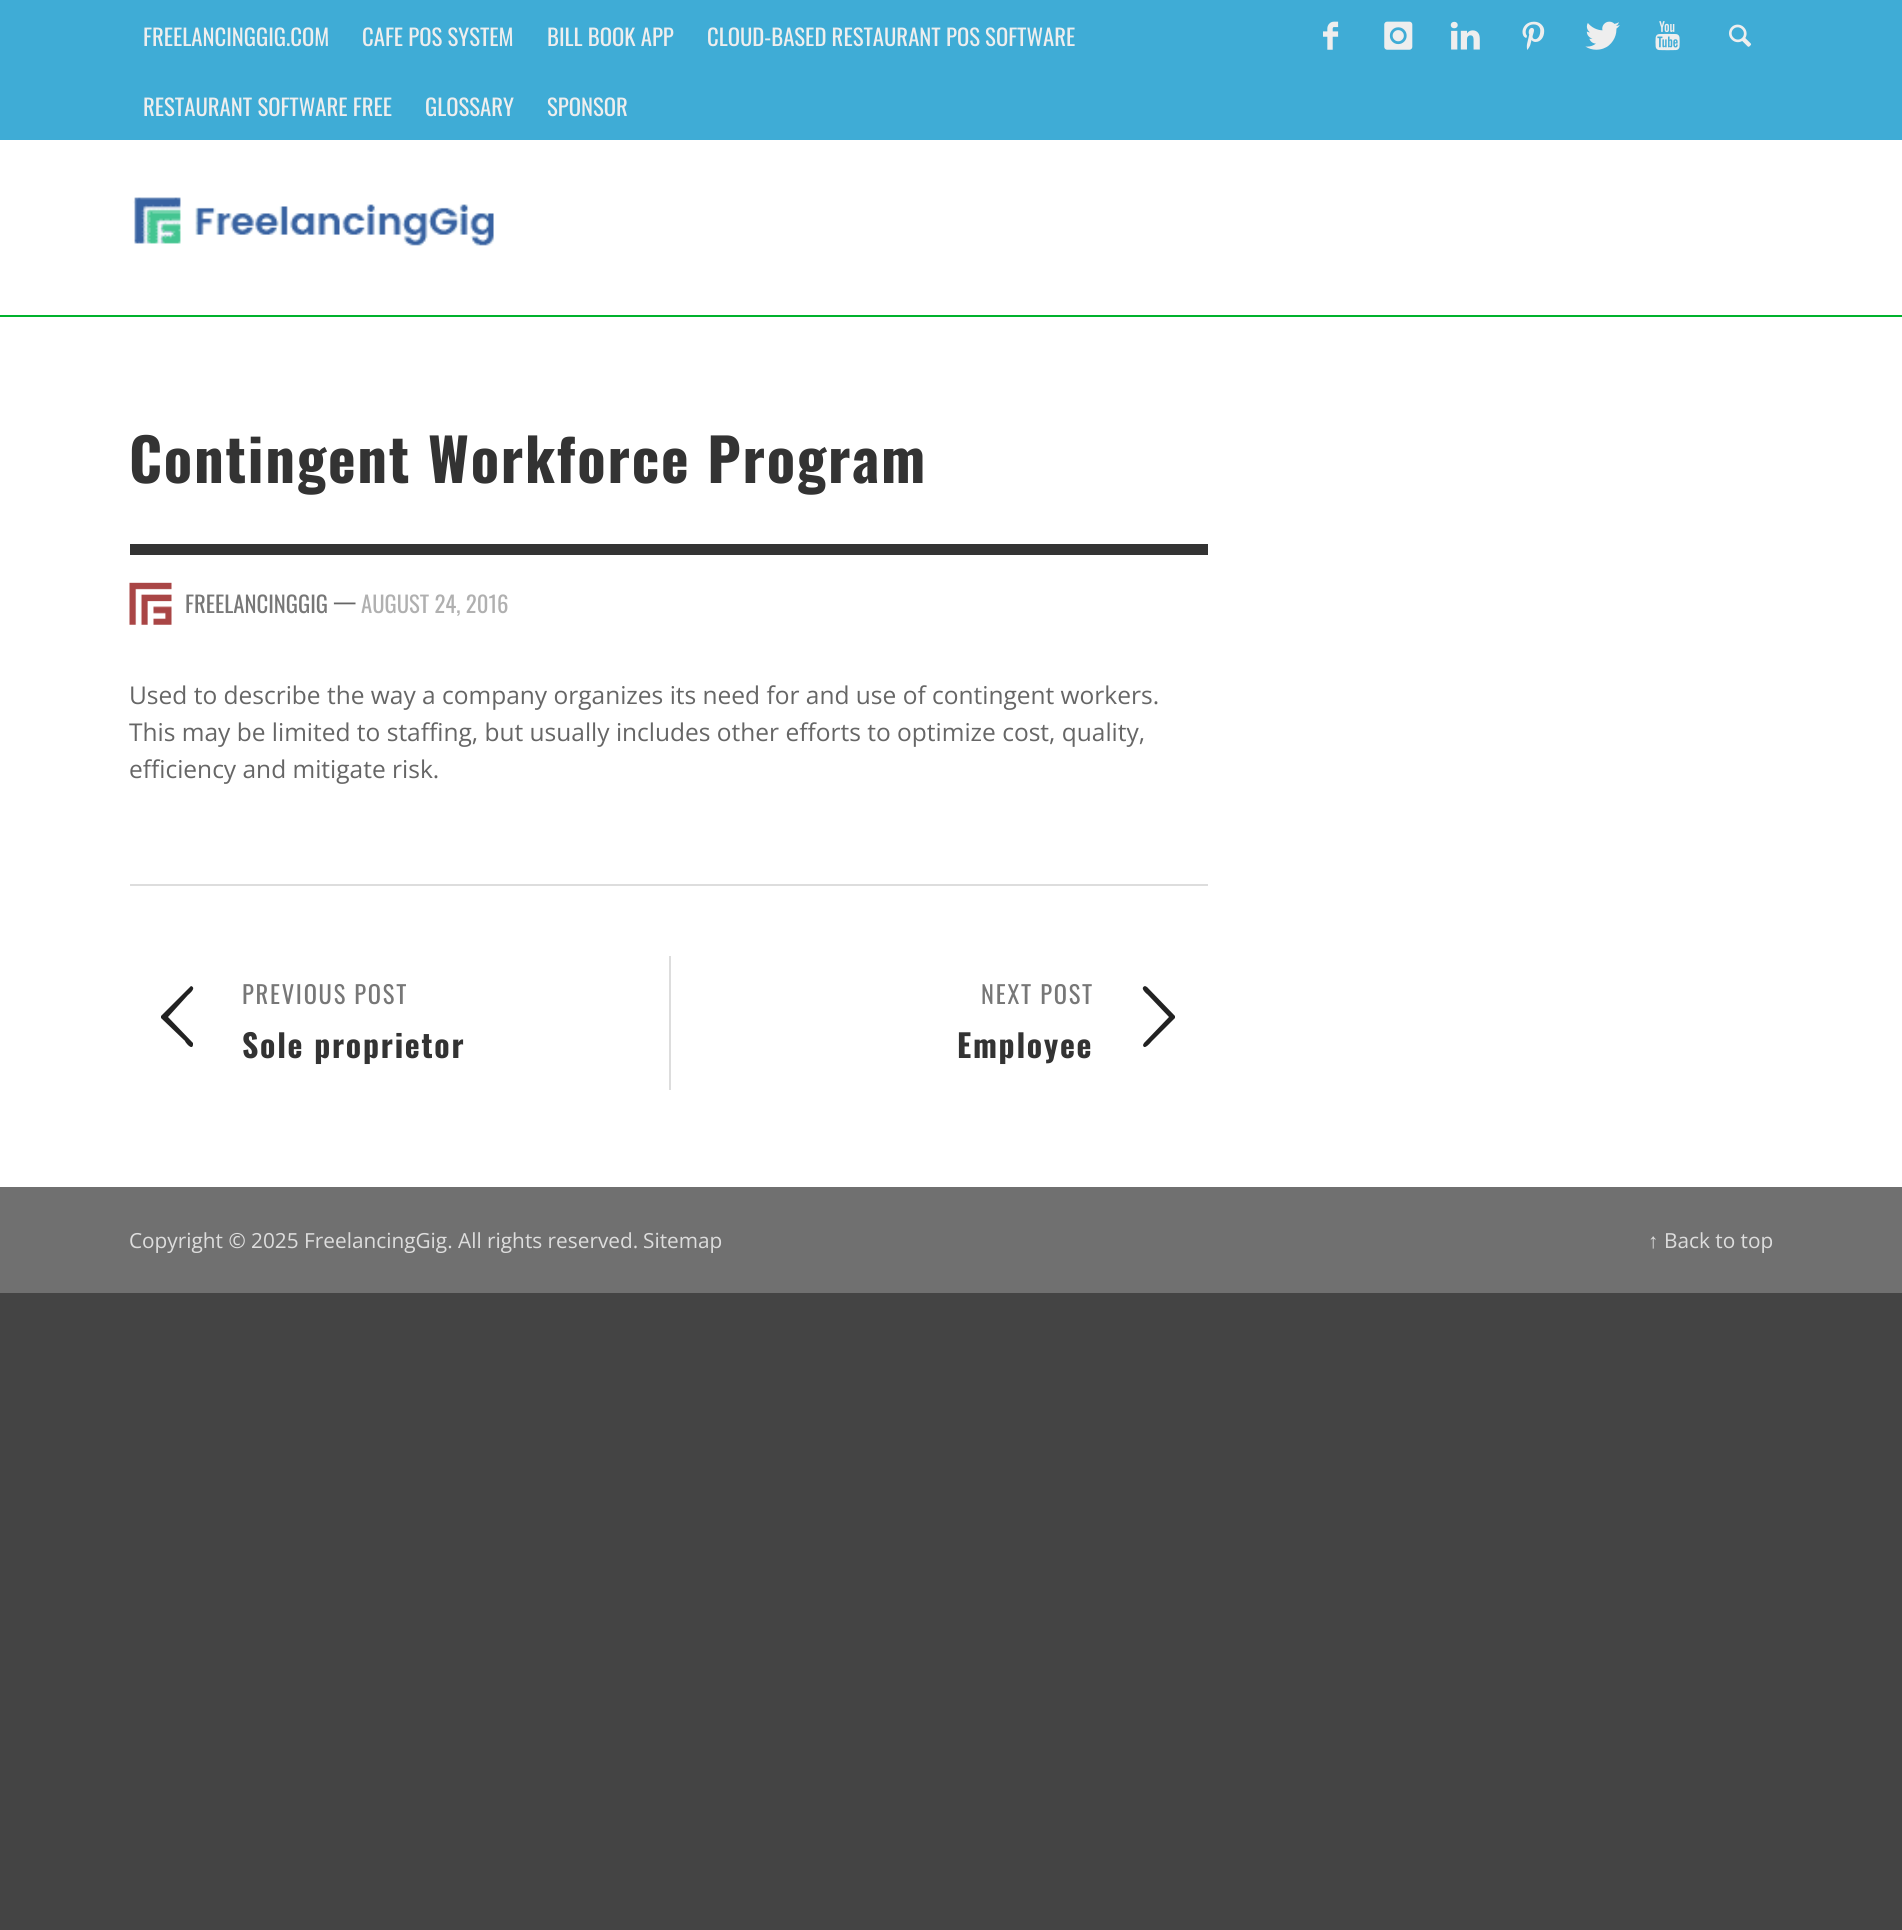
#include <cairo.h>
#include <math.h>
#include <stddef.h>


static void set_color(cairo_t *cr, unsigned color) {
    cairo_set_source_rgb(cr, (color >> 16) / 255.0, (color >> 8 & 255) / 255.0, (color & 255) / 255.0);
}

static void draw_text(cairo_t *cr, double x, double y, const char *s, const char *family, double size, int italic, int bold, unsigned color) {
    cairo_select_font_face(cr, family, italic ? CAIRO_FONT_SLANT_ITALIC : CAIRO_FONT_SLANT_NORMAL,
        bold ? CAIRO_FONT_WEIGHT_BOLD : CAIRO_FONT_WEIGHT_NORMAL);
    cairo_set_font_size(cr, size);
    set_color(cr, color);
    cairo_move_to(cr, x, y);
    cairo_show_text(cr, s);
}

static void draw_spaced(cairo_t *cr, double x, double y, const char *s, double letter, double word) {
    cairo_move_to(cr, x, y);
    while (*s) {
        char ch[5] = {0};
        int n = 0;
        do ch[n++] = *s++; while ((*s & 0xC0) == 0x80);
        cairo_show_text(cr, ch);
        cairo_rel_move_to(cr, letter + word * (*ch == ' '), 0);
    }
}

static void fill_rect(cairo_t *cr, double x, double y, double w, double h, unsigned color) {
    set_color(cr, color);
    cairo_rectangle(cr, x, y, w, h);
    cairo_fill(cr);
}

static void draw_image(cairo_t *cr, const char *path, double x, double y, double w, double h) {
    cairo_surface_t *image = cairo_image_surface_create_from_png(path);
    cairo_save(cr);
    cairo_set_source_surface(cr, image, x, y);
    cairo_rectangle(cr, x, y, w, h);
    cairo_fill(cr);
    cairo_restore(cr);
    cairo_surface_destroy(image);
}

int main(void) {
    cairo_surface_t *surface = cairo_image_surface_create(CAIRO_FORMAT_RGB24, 1902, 1930);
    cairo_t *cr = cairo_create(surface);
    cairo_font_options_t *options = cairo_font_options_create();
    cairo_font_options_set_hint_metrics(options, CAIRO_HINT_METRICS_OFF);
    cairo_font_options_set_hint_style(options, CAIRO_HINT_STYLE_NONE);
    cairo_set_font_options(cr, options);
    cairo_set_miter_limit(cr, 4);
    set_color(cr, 0x444444);
    cairo_paint(cr);
    fill_rect(cr, 0, 140, 1902, 1047, 0xFFFFFF);
    fill_rect(cr, 0, 0, 1902, 140, 0x3FACD6);
    draw_text(cr, 143, 46, "FREELANCINGGIG.COM", "Oswald", 22.75, 0, 0, 0xEEEEEE);
    draw_text(cr, 362, 46, "CAFE POS SYSTEM", "Oswald", 22.75, 0, 0, 0xEEEEEE);
    draw_text(cr, 547, 46, "BILL BOOK APP", "Oswald", 22.75, 0, 0, 0xEEEEEE);
    draw_text(cr, 707, 46, "CLOUD-BASED RESTAURANT POS SOFTWARE", "Oswald", 22.75, 0, 0, 0xEEEEEE);
    draw_text(cr, 143, 116, "RESTAURANT SOFTWARE FREE", "Oswald", 22.75, 0, 0, 0xEEEEEE);
    draw_text(cr, 425, 116, "GLOSSARY", "Oswald", 22.75, 0, 0, 0xEEEEEE);
    draw_text(cr, 547, 116, "SPONSOR", "Oswald", 22.75, 0, 0, 0xEEEEEE);
    draw_image(cr, "assets/img1.png", 1323, 21, 16, 29);
    draw_image(cr, "assets/img2.png", 1384, 21, 29, 29);
    draw_image(cr, "assets/img3.png", 1450, 21, 30, 29);
    draw_image(cr, "assets/img4.png", 1522, 21, 23, 29);
    draw_image(cr, "assets/img5.png", 1585, 21, 35, 29);
    draw_image(cr, "assets/img6.png", 1655, 21, 25, 30);
    draw_image(cr, "assets/img7.png", 1729, 24, 23, 23);
    draw_image(cr, "assets/img8.png", 133, 197, 361, 49);
    fill_rect(cr, 0, 315, 1902, 2, 0x00B22D);
    cairo_select_font_face(cr, "Oswald", CAIRO_FONT_SLANT_NORMAL, CAIRO_FONT_WEIGHT_BOLD);
    cairo_set_font_size(cr, 58.75);
    set_color(cr, 0x333333);
    draw_spaced(cr, 129, 483, "Contingent Workforce Program", 1.75, 0);
    fill_rect(cr, 130, 544, 1078, 11, 0x333333);
    draw_image(cr, "assets/img9.png", 129, 582, 43, 43);
    draw_text(cr, 185, 613, "FREELANCINGGIG", "Oswald", 22.75, 0, 0, 0x777777);
    draw_text(cr, 333, 610, "—", "Oswald", 22.75, 0, 0, 0x666666);
    draw_text(cr, 361, 613, "AUGUST 24, 2016", "Oswald", 22.75, 0, 0, 0xB0B0B0);
    draw_text(cr, 129, 704, "Used to describe the way a company organizes its need for and use of contingent workers.", "Open Sans", 24.5, 0, 0, 0x666666);
    draw_text(cr, 129, 741, "This may be limited to staffing, but usually includes other efforts to optimize cost, quality,", "Open Sans", 24.5, 0, 0, 0x666666);
    draw_text(cr, 129, 778, "efficiency and mitigate risk.", "Open Sans", 24.5, 0, 0, 0x666666);
    fill_rect(cr, 130, 884, 1078, 2, 0xDDDDDD);
    set_color(cr, 0x222222);
    cairo_new_path(cr);
    cairo_move_to(cr, 193, 1043);
    cairo_line_to(cr, 193, 1045);
    cairo_curve_to(cr, 192, 1051, 185, 1042, 185, 1041);
    cairo_line_to(cr, 161, 1018);
    cairo_line_to(cr, 161, 1016);
    cairo_line_to(cr, 190, 987);
    cairo_line_to(cr, 191, 986);
    cairo_curve_to(cr, 197, 988, 189, 994, 188, 995);
    cairo_line_to(cr, 168, 1017);
    cairo_close_path(cr);
    cairo_fill(cr);
    cairo_select_font_face(cr, "Oswald", CAIRO_FONT_SLANT_NORMAL, CAIRO_FONT_WEIGHT_NORMAL);
    set_color(cr, 0x777777);
    draw_spaced(cr, 242, 1004, "PREVIOUS POST", 1.75, 0);
    cairo_select_font_face(cr, "Oswald", CAIRO_FONT_SLANT_NORMAL, CAIRO_FONT_WEIGHT_BOLD);
    cairo_set_font_size(cr, 31.75);
    set_color(cr, 0x333333);
    draw_spaced(cr, 242, 1058, "Sole proprietor", 1.75, 0);
    fill_rect(cr, 669, 956, 2, 134, 0xDDDDDD);
    cairo_select_font_face(cr, "Oswald", CAIRO_FONT_SLANT_NORMAL, CAIRO_FONT_WEIGHT_NORMAL);
    cairo_set_font_size(cr, 24.5);
    set_color(cr, 0x777777);
    draw_spaced(cr, 981, 1004, "NEXT POST", 1.75, 0);
    cairo_select_font_face(cr, "Oswald", CAIRO_FONT_SLANT_NORMAL, CAIRO_FONT_WEIGHT_BOLD);
    cairo_set_font_size(cr, 31.75);
    set_color(cr, 0x333333);
    draw_spaced(cr, 957, 1058, "Employee", 1.75, 0);
    set_color(cr, 0x222222);
    cairo_new_path(cr);
    cairo_move_to(cr, 1144, 1043);
    cairo_line_to(cr, 1169, 1017);
    cairo_line_to(cr, 1148, 995);
    cairo_curve_to(cr, 1147, 994, 1139, 988, 1145, 986);
    cairo_line_to(cr, 1147, 987);
    cairo_line_to(cr, 1175, 1016);
    cairo_line_to(cr, 1175, 1018);
    cairo_line_to(cr, 1152, 1041);
    cairo_curve_to(cr, 1151, 1042, 1144, 1051, 1143, 1045);
    cairo_close_path(cr);
    cairo_fill(cr);
    fill_rect(cr, 0, 1187, 1902, 106, 0x707070);
    draw_text(cr, 129, 1248, "Copyright © 2025 FreelancingGig. All rights reserved.", "Open Sans", 20.8, 0, 0, 0xDDDDDD);
    draw_text(cr, 643, 1248, "Sitemap", "Open Sans", 20.8, 0, 0, 0xDDDDDD);
    draw_text(cr, 1648, 1248, "↑", "Liberation Sans", 20.8, 0, 0, 0xDDDDDD);
    draw_text(cr, 1664, 1248, "Back to top", "Open Sans", 20.8, 0, 0, 0xDDDDDD);
    cairo_surface_write_to_png(surface, "output.png");
    cairo_font_options_destroy(options);
    cairo_destroy(cr);
    cairo_surface_destroy(surface);
    return 0;
}
